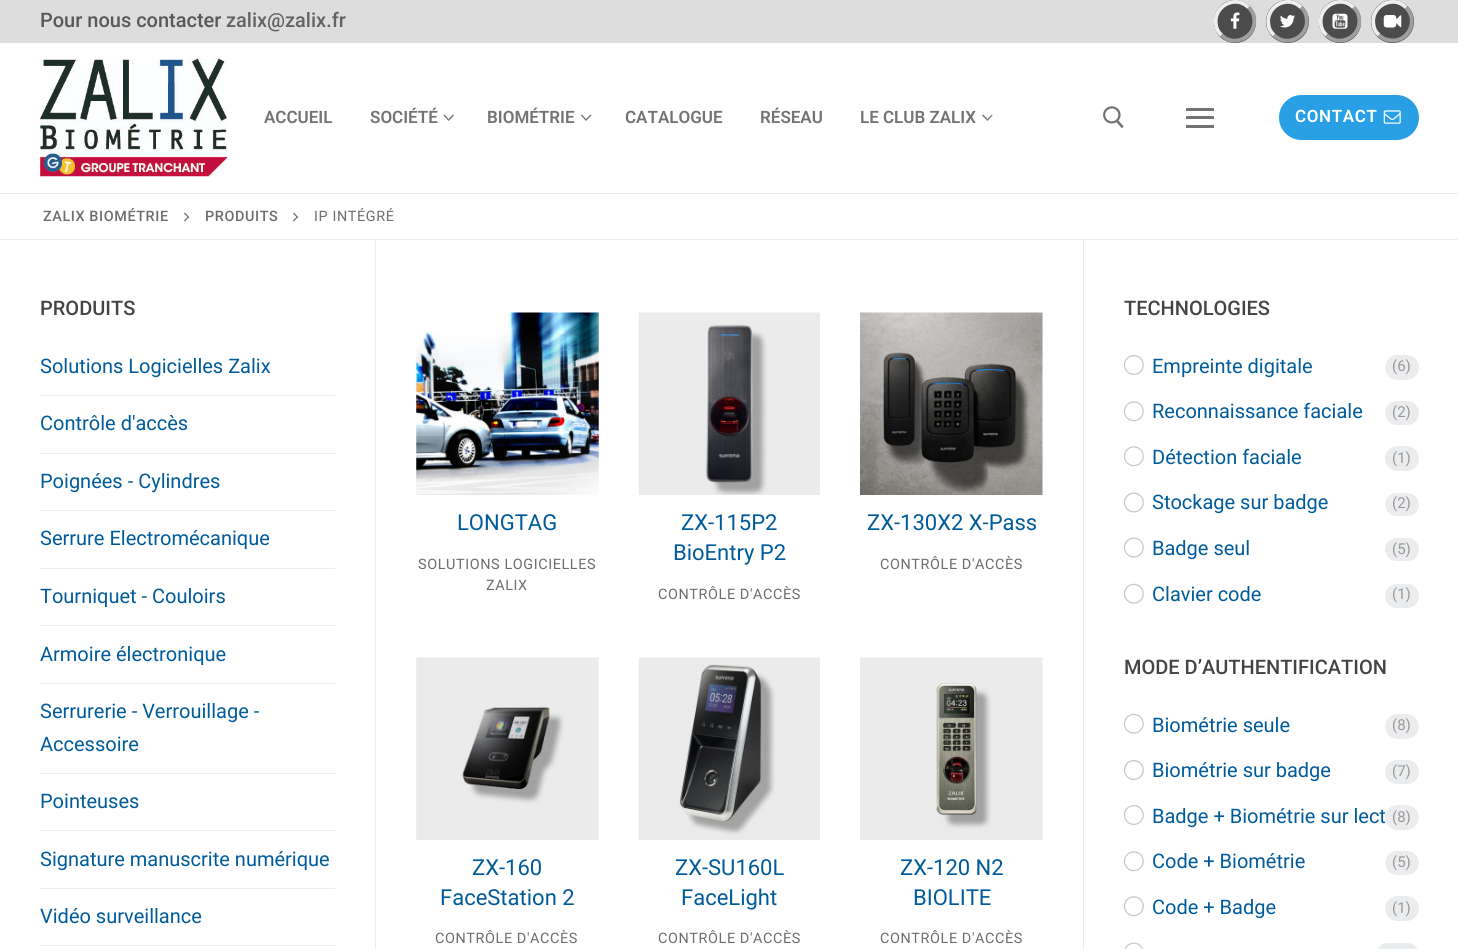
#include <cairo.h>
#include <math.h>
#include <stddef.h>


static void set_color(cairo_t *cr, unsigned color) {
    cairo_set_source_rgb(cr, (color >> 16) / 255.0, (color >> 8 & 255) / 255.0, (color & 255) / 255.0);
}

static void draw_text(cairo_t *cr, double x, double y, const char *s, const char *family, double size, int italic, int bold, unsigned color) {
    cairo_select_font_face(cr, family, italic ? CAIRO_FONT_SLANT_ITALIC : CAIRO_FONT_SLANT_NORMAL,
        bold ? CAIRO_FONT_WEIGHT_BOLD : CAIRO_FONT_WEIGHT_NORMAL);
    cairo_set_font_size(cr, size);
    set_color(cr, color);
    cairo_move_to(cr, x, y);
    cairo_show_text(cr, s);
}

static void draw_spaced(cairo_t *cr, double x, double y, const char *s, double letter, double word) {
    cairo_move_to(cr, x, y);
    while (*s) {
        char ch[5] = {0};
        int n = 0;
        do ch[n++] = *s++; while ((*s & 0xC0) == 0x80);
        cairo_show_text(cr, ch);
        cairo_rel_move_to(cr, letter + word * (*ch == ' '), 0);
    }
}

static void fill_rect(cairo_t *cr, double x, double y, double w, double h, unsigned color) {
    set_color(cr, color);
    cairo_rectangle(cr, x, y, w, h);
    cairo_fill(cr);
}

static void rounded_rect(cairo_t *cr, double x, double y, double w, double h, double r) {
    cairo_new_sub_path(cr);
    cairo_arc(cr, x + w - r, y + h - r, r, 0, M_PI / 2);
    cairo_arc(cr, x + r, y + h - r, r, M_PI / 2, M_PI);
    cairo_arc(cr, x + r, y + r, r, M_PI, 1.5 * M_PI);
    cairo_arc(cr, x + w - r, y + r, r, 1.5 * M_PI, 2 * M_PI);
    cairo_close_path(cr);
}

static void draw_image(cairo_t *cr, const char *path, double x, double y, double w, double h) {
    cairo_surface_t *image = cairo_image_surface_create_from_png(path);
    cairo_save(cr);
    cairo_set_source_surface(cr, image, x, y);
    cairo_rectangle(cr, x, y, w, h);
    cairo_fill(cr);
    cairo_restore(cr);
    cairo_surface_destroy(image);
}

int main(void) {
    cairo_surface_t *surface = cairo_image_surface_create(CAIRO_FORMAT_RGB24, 1458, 949);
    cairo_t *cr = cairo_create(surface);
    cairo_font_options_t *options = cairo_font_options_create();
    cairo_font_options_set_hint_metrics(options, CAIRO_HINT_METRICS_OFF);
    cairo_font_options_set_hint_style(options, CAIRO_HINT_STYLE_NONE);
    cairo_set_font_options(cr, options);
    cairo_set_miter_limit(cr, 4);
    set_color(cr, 0xFFFFFF);
    cairo_paint(cr);
    fill_rect(cr, 0, 0, 1458, 43, 0xDDDDDD);
    draw_text(cr, 40, 27, "Pour nous contacter", "Roboto Medium", 20, 0, 0, 0x585858);
    draw_text(cr, 226, 27, "zalix@zalix.fr", "Roboto Medium", 20, 0, 0, 0x636363);
    set_color(cr, 0x4C4C4C);
    rounded_rect(cr, 1214, 0, 42, 43, 21);
    cairo_fill(cr);
    cairo_new_path(cr);
    cairo_move_to(cr, 1248.5, 7.5);
    cairo_curve_to(cr, 1251.5, 10, 1253.5, 13.5, 1254, 17.5);
    cairo_curve_to(cr, 1257.5, 36, 1234.5, 48.5, 1221.5, 35);
    set_color(cr, 0x9F9F9F);
    cairo_set_line_width(cr, 3.8);
    cairo_stroke(cr);
    cairo_new_path(cr);
    cairo_move_to(cr, 1221.5, 35);
    cairo_curve_to(cr, 1218.5, 32.5, 1216.5, 29, 1216, 25);
    cairo_curve_to(cr, 1212.5, 6.5, 1235.5, -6, 1248.5, 7.5);
    set_color(cr, 0xEEEEEE);
    cairo_stroke(cr);
    draw_image(cr, "assets/img1.png", 1230, 12, 10, 17);
    set_color(cr, 0x4C4C4C);
    cairo_arc(cr, 1287.5, 21.5, 21.5, 0, 2 * M_PI);
    cairo_fill(cr);
    cairo_new_path(cr);
    cairo_move_to(cr, 1301, 7.5);
    cairo_curve_to(cr, 1304, 10, 1306, 13.5, 1306.5, 17.5);
    cairo_curve_to(cr, 1310, 36, 1287, 48.5, 1274, 35);
    set_color(cr, 0x9F9F9F);
    cairo_stroke(cr);
    cairo_new_path(cr);
    cairo_move_to(cr, 1274, 35);
    cairo_curve_to(cr, 1271, 32.5, 1269, 29, 1268.5, 25);
    cairo_curve_to(cr, 1265, 6.5, 1288, -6, 1301, 7.5);
    set_color(cr, 0xEEEEEE);
    cairo_stroke(cr);
    draw_image(cr, "assets/img2.png", 1280, 15, 15, 13);
    set_color(cr, 0x4C4C4C);
    rounded_rect(cr, 1319, 0, 42, 43, 21);
    cairo_fill(cr);
    cairo_new_path(cr);
    cairo_move_to(cr, 1353.5, 7.5);
    cairo_curve_to(cr, 1356.5, 10, 1358.5, 13.5, 1359, 17.5);
    cairo_curve_to(cr, 1362.5, 36, 1339.5, 48.5, 1326.5, 35);
    set_color(cr, 0x9F9F9F);
    cairo_stroke(cr);
    cairo_new_path(cr);
    cairo_move_to(cr, 1326.5, 35);
    cairo_curve_to(cr, 1323.5, 32.5, 1321.5, 29, 1321, 25);
    cairo_curve_to(cr, 1317.5, 6.5, 1340.5, -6, 1353.5, 7.5);
    set_color(cr, 0xEEEEEE);
    cairo_stroke(cr);
    draw_image(cr, "assets/img3.png", 1332, 13, 16, 16);
    set_color(cr, 0x4C4C4C);
    cairo_arc(cr, 1392.5, 21.5, 21.5, 0, 2 * M_PI);
    cairo_fill(cr);
    cairo_new_path(cr);
    cairo_move_to(cr, 1406, 7.5);
    cairo_curve_to(cr, 1419.5, 21, 1407.5, 44, 1388.5, 40);
    cairo_curve_to(cr, 1385, 39.5, 1381.5, 37.5, 1379, 35);
    set_color(cr, 0x9F9F9F);
    cairo_stroke(cr);
    cairo_new_path(cr);
    cairo_move_to(cr, 1379, 35);
    cairo_curve_to(cr, 1376, 32.5, 1374, 29, 1373.5, 25);
    cairo_curve_to(cr, 1370, 6.5, 1393, -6, 1406, 7.5);
    set_color(cr, 0xEEEEEE);
    cairo_stroke(cr);
    draw_image(cr, "assets/img4.png", 1383, 15, 19, 13);
    fill_rect(cr, 0, 193, 1458, 1, 0xEAEAEA);
    draw_image(cr, "assets/img5.png", 40, 58, 188, 119);
    draw_text(cr, 264, 123, "ACCUEIL", "Roboto SemiBold", 17, 0, 0, 0x737373);
    draw_text(cr, 370, 123, "SOCIÉTÉ", "Roboto SemiBold", 17, 0, 0, 0x737373);
    cairo_new_path(cr);
    cairo_move_to(cr, 448.5, 121);
    cairo_line_to(cr, 443.5, 115.5);
    cairo_line_to(cr, 444.5, 114.5);
    cairo_line_to(cr, 448.5, 119);
    cairo_close_path(cr);
    cairo_fill(cr);
    cairo_set_source_rgba(cr, 0, 0, 0, 0.55);
    cairo_new_path(cr);
    cairo_move_to(cr, 454, 115.5);
    cairo_line_to(cr, 448.5, 121);
    cairo_line_to(cr, 448.5, 119);
    cairo_line_to(cr, 453, 114.5);
    cairo_close_path(cr);
    cairo_fill(cr);
    draw_text(cr, 487, 123, "BIOMÉTRIE", "Roboto SemiBold", 17, 0, 0, 0x737373);
    cairo_new_path(cr);
    cairo_move_to(cr, 586, 121);
    cairo_line_to(cr, 581, 115.5);
    cairo_line_to(cr, 582, 114.5);
    cairo_line_to(cr, 586, 119);
    cairo_close_path(cr);
    cairo_move_to(cr, 591.5, 115.5);
    cairo_line_to(cr, 586, 121);
    cairo_line_to(cr, 586, 119);
    cairo_line_to(cr, 590.5, 114.5);
    cairo_close_path(cr);
    cairo_fill(cr);
    draw_text(cr, 625, 123, "CATALOGUE", "Roboto SemiBold", 17, 0, 0, 0x737373);
    draw_text(cr, 760, 123, "RÉSEAU", "Roboto SemiBold", 17, 0, 0, 0x737373);
    draw_text(cr, 860, 123, "LE CLUB ZALIX", "Roboto SemiBold", 17, 0, 0, 0x737373);
    cairo_new_path(cr);
    cairo_move_to(cr, 987.5, 121);
    cairo_line_to(cr, 982, 115.5);
    cairo_line_to(cr, 983, 114.5);
    cairo_line_to(cr, 987.5, 119);
    cairo_close_path(cr);
    cairo_fill(cr);
    cairo_set_source_rgba(cr, 0, 0, 0, 0.55);
    cairo_new_path(cr);
    cairo_move_to(cr, 992.5, 115.5);
    cairo_line_to(cr, 987.5, 121);
    cairo_line_to(cr, 987.5, 119);
    cairo_line_to(cr, 992, 114.5);
    cairo_close_path(cr);
    cairo_fill(cr);
    draw_image(cr, "assets/img6.png", 1103, 106, 21, 23);
    fill_rect(cr, 1186, 116, 28, 3, 0x737373);
    fill_rect(cr, 1186, 108, 28, 3, 0x737373);
    fill_rect(cr, 1186, 125, 28, 3, 0x737373);
    set_color(cr, 0x29A0E5);
    rounded_rect(cr, 1279, 95, 140, 45, 22.5);
    cairo_fill(cr);
    set_color(cr, 0xFFFFFF);
    draw_spaced(cr, 1295, 122, "CONTACT", 0.6, 0);
    draw_image(cr, "assets/img7.png", 1383, 110, 18, 14);
    fill_rect(cr, 0, 239, 1458, 1, 0xEAECEE);
    cairo_select_font_face(cr, "Roboto Medium", CAIRO_FONT_SLANT_NORMAL, CAIRO_FONT_WEIGHT_NORMAL);
    cairo_set_font_size(cr, 14.4);
    set_color(cr, 0x6D6D6D);
    draw_spaced(cr, 43, 221, "ZALIX BIOMÉTRIE", 0.6, 0);
    cairo_new_path(cr);
    cairo_move_to(cr, 189, 217);
    cairo_line_to(cr, 185, 221.5);
    cairo_line_to(cr, 184, 220.5);
    cairo_line_to(cr, 188.5, 216);
    cairo_close_path(cr);
    cairo_fill(cr);
    cairo_new_path(cr);
    cairo_move_to(cr, 189, 217);
    cairo_line_to(cr, 188.5, 218);
    cairo_line_to(cr, 184, 213.5);
    cairo_line_to(cr, 185, 212.5);
    cairo_close_path(cr);
    cairo_fill(cr);
    draw_spaced(cr, 205, 221, "PRODUITS", 0.6, 0);
    cairo_new_path(cr);
    cairo_move_to(cr, 298, 217);
    cairo_line_to(cr, 294, 221.5);
    cairo_line_to(cr, 293, 220.5);
    cairo_line_to(cr, 297.5, 216);
    cairo_close_path(cr);
    cairo_fill(cr);
    cairo_new_path(cr);
    cairo_move_to(cr, 298, 217);
    cairo_line_to(cr, 297.5, 218);
    cairo_line_to(cr, 293, 213.5);
    cairo_line_to(cr, 294, 212.5);
    cairo_close_path(cr);
    cairo_fill(cr);
    cairo_select_font_face(cr, "Roboto", CAIRO_FONT_SLANT_NORMAL, CAIRO_FONT_WEIGHT_NORMAL);
    draw_spaced(cr, 314, 221, "IP INTÉGRÉ", 0.6, 0);
    draw_text(cr, 40, 315, "PRODUITS", "Roboto Medium", 20, 0, 0, 0x444444);
    fill_rect(cr, 40, 395, 295, 1, 0xEAECEE);
    draw_text(cr, 40, 373, "Solutions Logicielles Zalix", "Roboto", 20, 0, 0, 0x005B9B);
    fill_rect(cr, 40, 453, 295, 1, 0xEAECEE);
    draw_text(cr, 40, 430, "Contrôle d'accès", "Roboto", 20, 0, 0, 0x005B9B);
    fill_rect(cr, 40, 510, 295, 1, 0xEAECEE);
    draw_text(cr, 40, 488, "Poignées - Cylindres", "Roboto", 20, 0, 0, 0x005B9B);
    fill_rect(cr, 40, 568, 295, 1, 0xEAECEE);
    draw_text(cr, 40, 545, "Serrure Electromécanique", "Roboto", 20, 0, 0, 0x005B9B);
    fill_rect(cr, 40, 625, 295, 1, 0xEAECEE);
    draw_text(cr, 40, 603, "Tourniquet - Couloirs", "Roboto", 20, 0, 0, 0x005B9B);
    fill_rect(cr, 40, 683, 295, 1, 0xEAECEE);
    draw_text(cr, 40, 661, "Armoire électronique", "Roboto", 20, 0, 0, 0x005B9B);
    fill_rect(cr, 40, 773, 295, 1, 0xEAECEE);
    draw_text(cr, 40, 718, "Serrurerie - Verrouillage -", "Roboto", 20, 0, 0, 0x005B9B);
    draw_text(cr, 40, 751, "Accessoire", "Roboto", 20, 0, 0, 0x005B9B);
    fill_rect(cr, 40, 830, 295, 1, 0xEAECEE);
    draw_text(cr, 40, 808, "Pointeuses", "Roboto", 20, 0, 0, 0x005B9B);
    fill_rect(cr, 40, 888, 295, 1, 0xEAECEE);
    draw_text(cr, 40, 866, "Signature manuscrite numérique", "Roboto", 20, 0, 0, 0x005B9B);
    fill_rect(cr, 40, 945, 295, 1, 0xEAECEE);
    draw_text(cr, 40, 923, "Vidéo surveillance", "Roboto", 20, 0, 0, 0x005B9B);
    fill_rect(cr, 1083, 240, 1, 709, 0xEAECEE);
    fill_rect(cr, 375, 240, 1, 709, 0xEAECEE);
    draw_image(cr, "assets/img8.png", 416, 312, 183, 183);
    draw_text(cr, 457, 530, "LONGTAG", "Roboto", 22, 0, 0, 0x005B9B);
    cairo_set_font_size(cr, 14.4);
    set_color(cr, 0x6D6D6D);
    draw_spaced(cr, 418, 569, "SOLUTIONS LOGICIELLES", 0.6, 0);
    draw_spaced(cr, 486, 590, "ZALIX", 0.6, 0);
    draw_image(cr, "assets/img9.png", 638, 312, 182, 183);
    draw_text(cr, 681, 530, "ZX-115P2", "Roboto", 22, 0, 0, 0x005B9B);
    draw_text(cr, 673, 560, "BioEntry P2", "Roboto", 22, 0, 0, 0x005B9B);
    cairo_set_font_size(cr, 14.4);
    set_color(cr, 0x6D6D6D);
    draw_spaced(cr, 658, 599, "CONTRÔLE D'ACCÈS", 0.6, 0);
    draw_image(cr, "assets/img10.png", 860, 312, 183, 183);
    draw_text(cr, 867, 530, "ZX-130X2 X-Pass", "Roboto", 22, 0, 0, 0x005B9B);
    cairo_set_font_size(cr, 14.4);
    set_color(cr, 0x6D6D6D);
    draw_spaced(cr, 880, 569, "CONTRÔLE D'ACCÈS", 0.6, 0);
    draw_image(cr, "assets/img11.png", 416, 657, 183, 183);
    draw_text(cr, 472, 875, "ZX-160", "Roboto", 22, 0, 0, 0x005B9B);
    draw_text(cr, 440, 905, "FaceStation 2", "Roboto", 22, 0, 0, 0x005B9B);
    cairo_set_font_size(cr, 14.4);
    set_color(cr, 0x6D6D6D);
    draw_spaced(cr, 435, 943, "CONTRÔLE D'ACCÈS", 0.6, 0);
    draw_image(cr, "assets/img12.png", 638, 657, 182, 183);
    draw_text(cr, 675, 875, "ZX-SU160L", "Roboto", 22, 0, 0, 0x005B9B);
    draw_text(cr, 681, 905, "FaceLight", "Roboto", 22, 0, 0, 0x005B9B);
    cairo_set_font_size(cr, 14.4);
    set_color(cr, 0x6D6D6D);
    draw_spaced(cr, 658, 943, "CONTRÔLE D'ACCÈS", 0.6, 0);
    draw_image(cr, "assets/img13.png", 860, 657, 183, 183);
    draw_text(cr, 900, 875, "ZX-120 N2", "Roboto", 22, 0, 0, 0x005B9B);
    draw_text(cr, 913, 905, "BIOLITE", "Roboto", 22, 0, 0, 0x005B9B);
    cairo_set_font_size(cr, 14.4);
    set_color(cr, 0x6D6D6D);
    draw_spaced(cr, 880, 943, "CONTRÔLE D'ACCÈS", 0.6, 0);
    draw_text(cr, 1124, 315, "TECHNOLOGIES", "Roboto Medium", 20, 0, 0, 0x444444);
    draw_image(cr, "assets/img14.png", 1123, 355, 21, 20);
    draw_text(cr, 1152, 373, "Empreinte digitale", "Roboto", 20, 0, 0, 0x005B9B);
    set_color(cr, 0xEAECEE);
    rounded_rect(cr, 1385, 355, 34, 25, 12.5);
    cairo_fill(cr);
    draw_text(cr, 1392, 371, "(6)", "Roboto", 15, 0, 0, 0x999999);
    draw_image(cr, "assets/img15.png", 1123, 401, 21, 21);
    draw_text(cr, 1152, 418, "Reconnaissance faciale", "Roboto", 20, 0, 0, 0x005B9B);
    set_color(cr, 0xEAECEE);
    rounded_rect(cr, 1385, 401, 34, 24, 12);
    cairo_fill(cr);
    draw_text(cr, 1392, 417, "(2)", "Roboto", 15, 0, 0, 0x999999);
    draw_image(cr, "assets/img15.png", 1123, 446, 21, 21);
    draw_text(cr, 1152, 464, "Détection faciale", "Roboto", 20, 0, 0, 0x005B9B);
    set_color(cr, 0xEAECEE);
    rounded_rect(cr, 1385, 446, 34, 25, 12.5);
    cairo_fill(cr);
    draw_text(cr, 1392, 463, "(1)", "Roboto", 15, 0, 0, 0x999999);
    draw_image(cr, "assets/img16.png", 1123, 492, 21, 21);
    draw_text(cr, 1152, 509, "Stockage sur badge", "Roboto", 20, 0, 0, 0x005B9B);
    set_color(cr, 0xEAECEE);
    rounded_rect(cr, 1385, 493, 34, 23, 11.5);
    cairo_fill(cr);
    draw_text(cr, 1392, 508, "(2)", "Roboto", 15, 0, 0, 0x999999);
    draw_image(cr, "assets/img16.png", 1123, 537, 21, 21);
    draw_text(cr, 1152, 555, "Badge seul", "Roboto", 20, 0, 0, 0x005B9B);
    set_color(cr, 0xEAECEE);
    rounded_rect(cr, 1385, 538, 34, 23, 11.5);
    cairo_fill(cr);
    draw_text(cr, 1392, 554, "(5)", "Roboto", 15, 0, 0, 0x999999);
    draw_image(cr, "assets/img17.png", 1123, 583, 21, 21);
    draw_text(cr, 1152, 601, "Clavier code", "Roboto", 20, 0, 0, 0x005B9B);
    set_color(cr, 0xEAECEE);
    rounded_rect(cr, 1385, 584, 34, 24, 12);
    cairo_fill(cr);
    draw_text(cr, 1392, 599, "(1)", "Roboto", 15, 0, 0, 0x999999);
    draw_text(cr, 1124, 674, "MODE D’AUTHENTIFICATION", "Roboto Medium", 20, 0, 0, 0x444444);
    draw_image(cr, "assets/img17.png", 1123, 713, 21, 21);
    draw_text(cr, 1152, 732, "Biométrie seule", "Roboto", 20, 0, 0, 0x005B9B);
    set_color(cr, 0xEAECEE);
    rounded_rect(cr, 1385, 714, 34, 25, 12.5);
    cairo_fill(cr);
    draw_text(cr, 1392, 730, "(8)", "Roboto", 15, 0, 0, 0x999999);
    draw_image(cr, "assets/img14.png", 1123, 760, 21, 20);
    draw_text(cr, 1152, 777, "Biométrie sur badge", "Roboto", 20, 0, 0, 0x005B9B);
    set_color(cr, 0xEAECEE);
    rounded_rect(cr, 1385, 760, 34, 24, 12);
    cairo_fill(cr);
    draw_text(cr, 1392, 776, "(7)", "Roboto", 15, 0, 0, 0x999999);
    draw_image(cr, "assets/img14.png", 1123, 805, 21, 20);
    draw_text(cr, 1152, 823, "Badge + Biométrie sur lect", "Roboto", 20, 0, 0, 0x005B9B);
    set_color(cr, 0xEAECEE);
    rounded_rect(cr, 1385, 805, 34, 25, 12.5);
    cairo_fill(cr);
    draw_text(cr, 1392, 822, "(8)", "Roboto", 15, 0, 0, 0x999999);
    draw_image(cr, "assets/img15.png", 1123, 851, 21, 21);
    draw_text(cr, 1152, 868, "Code + Biométrie", "Roboto", 20, 0, 0, 0x005B9B);
    set_color(cr, 0xEAECEE);
    rounded_rect(cr, 1385, 851, 34, 24, 12);
    cairo_fill(cr);
    draw_text(cr, 1392, 867, "(5)", "Roboto", 15, 0, 0, 0x999999);
    draw_image(cr, "assets/img15.png", 1123, 896, 21, 21);
    draw_text(cr, 1152, 914, "Code + Badge", "Roboto", 20, 0, 0, 0x005B9B);
    set_color(cr, 0xEAECEE);
    rounded_rect(cr, 1385, 896, 34, 25, 12.5);
    cairo_fill(cr);
    draw_text(cr, 1392, 913, "(1)", "Roboto", 15, 0, 0, 0x999999);
    draw_image(cr, "assets/img18.png", 1124, 942, 19, 7);
    set_color(cr, 0xEAECEE);
    rounded_rect(cr, 1376, 943, 43, 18, 11.5);
    cairo_fill(cr);
    cairo_surface_write_to_png(surface, "output.png");
    cairo_font_options_destroy(options);
    cairo_destroy(cr);
    cairo_surface_destroy(surface);
    return 0;
}
